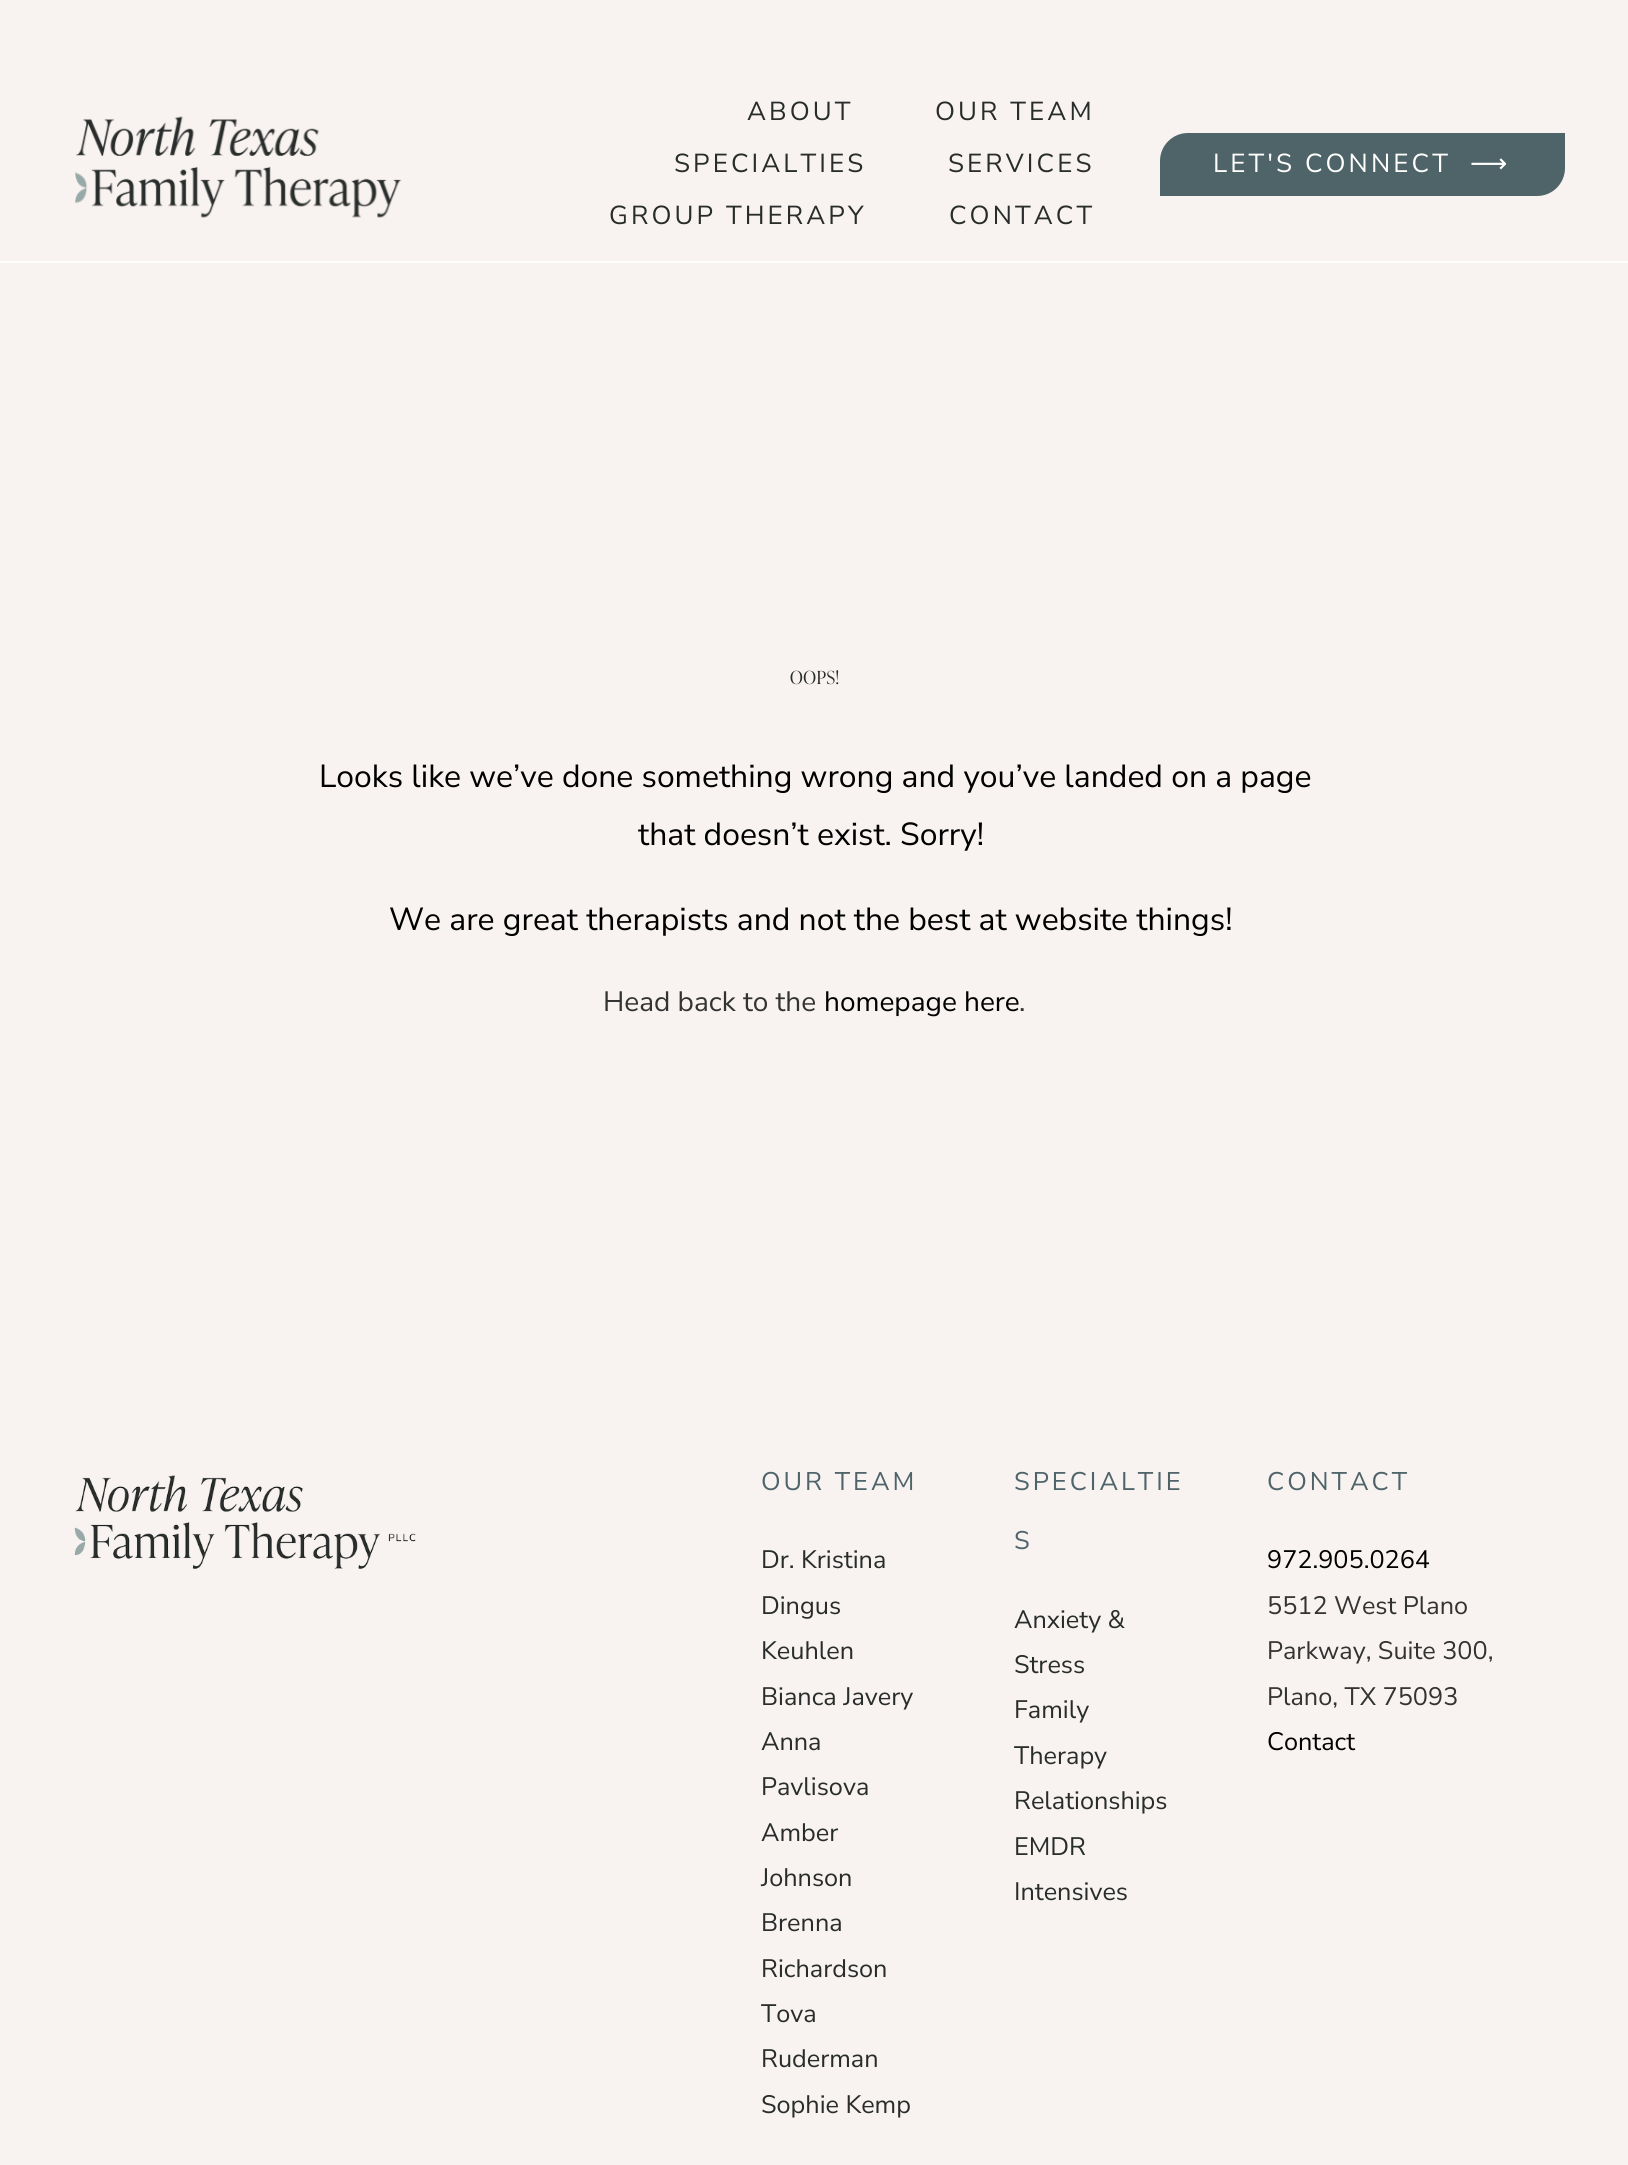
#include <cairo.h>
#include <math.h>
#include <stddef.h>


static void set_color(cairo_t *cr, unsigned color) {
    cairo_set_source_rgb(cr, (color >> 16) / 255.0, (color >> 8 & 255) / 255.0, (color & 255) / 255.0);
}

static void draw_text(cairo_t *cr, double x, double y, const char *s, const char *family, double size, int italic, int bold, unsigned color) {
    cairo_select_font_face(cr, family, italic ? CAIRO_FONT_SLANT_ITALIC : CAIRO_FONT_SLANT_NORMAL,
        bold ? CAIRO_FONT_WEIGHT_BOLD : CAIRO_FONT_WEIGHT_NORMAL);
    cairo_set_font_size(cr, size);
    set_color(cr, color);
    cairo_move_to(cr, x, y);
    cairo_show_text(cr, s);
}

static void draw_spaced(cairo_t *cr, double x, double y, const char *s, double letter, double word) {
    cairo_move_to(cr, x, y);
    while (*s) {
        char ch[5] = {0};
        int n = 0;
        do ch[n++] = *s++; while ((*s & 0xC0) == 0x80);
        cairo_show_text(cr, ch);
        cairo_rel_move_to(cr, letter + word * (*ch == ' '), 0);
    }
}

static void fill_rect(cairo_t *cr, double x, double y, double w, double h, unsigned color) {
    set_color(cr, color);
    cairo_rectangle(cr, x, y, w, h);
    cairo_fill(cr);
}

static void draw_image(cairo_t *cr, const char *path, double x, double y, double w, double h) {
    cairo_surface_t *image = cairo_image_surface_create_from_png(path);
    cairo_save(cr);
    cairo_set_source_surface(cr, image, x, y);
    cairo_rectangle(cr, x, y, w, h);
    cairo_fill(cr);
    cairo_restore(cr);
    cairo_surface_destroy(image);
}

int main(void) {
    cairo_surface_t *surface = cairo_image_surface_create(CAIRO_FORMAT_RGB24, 1628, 2165);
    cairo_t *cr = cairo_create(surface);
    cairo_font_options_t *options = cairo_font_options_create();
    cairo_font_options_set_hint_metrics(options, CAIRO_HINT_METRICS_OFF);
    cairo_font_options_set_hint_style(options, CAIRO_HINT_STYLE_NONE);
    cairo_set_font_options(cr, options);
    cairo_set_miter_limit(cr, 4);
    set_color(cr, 0xF8F3F1);
    cairo_paint(cr);
    draw_image(cr, "assets/img1.png", 75, 116, 327, 102);
    cairo_select_font_face(cr, "Nunito Sans", CAIRO_FONT_SLANT_NORMAL, CAIRO_FONT_WEIGHT_NORMAL);
    cairo_set_font_size(cr, 26);
    set_color(cr, 0x282C2B);
    draw_spaced(cr, 747, 120, "ABOUT", 3.1, 0);
    draw_spaced(cr, 935, 120, "OUR TEAM", 3.1, 0);
    draw_spaced(cr, 674, 172, "SPECIALTIES", 3.1, 0);
    draw_spaced(cr, 948, 172, "SERVICES", 3.1, 0);
    draw_spaced(cr, 609, 224, "GROUP THERAPY", 3.1, 0);
    draw_spaced(cr, 949, 224, "CONTACT", 3.1, 0);
    set_color(cr, 0x4F6469);
    cairo_new_path(cr);
    cairo_move_to(cr, 1188, 133);
    cairo_line_to(cr, 1565, 133);
    cairo_line_to(cr, 1565, 168);
    cairo_curve_to(cr, 1565, 183.5, 1552.5, 196, 1537, 196);
    cairo_line_to(cr, 1160, 196);
    cairo_line_to(cr, 1160, 161);
    cairo_curve_to(cr, 1160, 145.5, 1172.5, 133, 1188, 133);
    cairo_close_path(cr);
    cairo_fill(cr);
    set_color(cr, 0xFFFFFD);
    draw_spaced(cr, 1213, 172, "LET'S CONNECT", 3.1, 0);
    cairo_select_font_face(cr, "DejaVu Sans", CAIRO_FONT_SLANT_NORMAL, CAIRO_FONT_WEIGHT_NORMAL);
    draw_spaced(cr, 1470, 172, "⟶", 3.1, 0);
    fill_rect(cr, 0, 261, 1628, 2, 0xFFFFFD);
    cairo_select_font_face(cr, "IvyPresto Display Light", CAIRO_FONT_SLANT_NORMAL, CAIRO_FONT_WEIGHT_NORMAL);
    cairo_set_font_size(cr, 18);
    set_color(cr, 0x282C2B);
    draw_spaced(cr, 790, 684, "OOPS!", 0.5, 0);
    draw_text(cr, 319, 787, "Looks like we’ve done something wrong and you’ve landed on a page", "Nunito Sans", 31.9, 0, 0, 0x000000);
    draw_text(cr, 638, 845, "that doesn’t exist. Sorry!", "Nunito Sans", 31.9, 0, 0, 0x000000);
    draw_text(cr, 389, 930, "We are great therapists and not the best at website things!", "Nunito Sans", 31.9, 0, 0, 0x000000);
    draw_text(cr, 603, 1011, "Head back to the", "Nunito Sans", 28, 0, 0, 0x333333);
    draw_text(cr, 824, 1011, "homepage here", "Nunito Sans", 28, 0, 0, 0x000000);
    draw_text(cr, 1019, 1011, ".", "Nunito Sans", 28, 0, 0, 0x333333);
    draw_image(cr, "assets/img2.png", 74, 1475, 342, 94);
    cairo_set_font_size(cr, 25.5);
    set_color(cr, 0x4F6469);
    draw_spaced(cr, 761, 1490, "OUR TEAM", 3, 0);
    draw_text(cr, 761, 1568, "Dr. Kristina", "Nunito Sans", 25.25, 0, 0, 0x282C2B);
    draw_text(cr, 761, 1614, "Dingus", "Nunito Sans", 25.25, 0, 0, 0x282C2B);
    draw_text(cr, 761, 1659, "Keuhlen", "Nunito Sans", 25.25, 0, 0, 0x282C2B);
    draw_text(cr, 761, 1705, "Bianca Javery", "Nunito Sans", 25.25, 0, 0, 0x282C2B);
    draw_text(cr, 761, 1750, "Anna", "Nunito Sans", 25.25, 0, 0, 0x282C2B);
    draw_text(cr, 761, 1795, "Pavlisova", "Nunito Sans", 25.25, 0, 0, 0x282C2B);
    draw_text(cr, 761, 1841, "Amber", "Nunito Sans", 25.25, 0, 0, 0x282C2B);
    draw_text(cr, 761, 1886, "Johnson", "Nunito Sans", 25.25, 0, 0, 0x282C2B);
    draw_text(cr, 761, 1931, "Brenna", "Nunito Sans", 25.25, 0, 0, 0x282C2B);
    draw_text(cr, 761, 1977, "Richardson", "Nunito Sans", 25.25, 0, 0, 0x282C2B);
    draw_text(cr, 761, 2022, "Tova", "Nunito Sans", 25.25, 0, 0, 0x282C2B);
    draw_text(cr, 761, 2067, "Ruderman", "Nunito Sans", 25.25, 0, 0, 0x282C2B);
    draw_text(cr, 761, 2113, "Sophie Kemp", "Nunito Sans", 25.25, 0, 0, 0x282C2B);
    cairo_set_font_size(cr, 25.5);
    set_color(cr, 0x4F6469);
    draw_spaced(cr, 1014, 1490, "SPECIALTIE", 3, 0);
    draw_spaced(cr, 1014, 1549, "S", 3, 0);
    draw_text(cr, 1014, 1628, "Anxiety &", "Nunito Sans", 25.25, 0, 0, 0x282C2B);
    draw_text(cr, 1014, 1673, "Stress", "Nunito Sans", 25.25, 0, 0, 0x282C2B);
    draw_text(cr, 1014, 1718, "Family", "Nunito Sans", 25.25, 0, 0, 0x282C2B);
    draw_text(cr, 1014, 1764, "Therapy", "Nunito Sans", 25.25, 0, 0, 0x282C2B);
    draw_text(cr, 1014, 1809, "Relationships", "Nunito Sans", 25.25, 0, 0, 0x282C2B);
    draw_text(cr, 1014, 1855, "EMDR", "Nunito Sans", 25.25, 0, 0, 0x282C2B);
    draw_text(cr, 1014, 1900, "Intensives", "Nunito Sans", 25.25, 0, 0, 0x282C2B);
    cairo_set_font_size(cr, 25.5);
    set_color(cr, 0x4F6469);
    draw_spaced(cr, 1267, 1490, "CONTACT", 3, 0);
    draw_text(cr, 1267, 1568, "972.905.0264", "Nunito Sans", 25.25, 0, 0, 0x000000);
    draw_text(cr, 1267, 1614, "5512 West Plano", "Nunito Sans", 25.25, 0, 0, 0x333333);
    draw_text(cr, 1267, 1659, "Parkway, Suite 300,", "Nunito Sans", 25.25, 0, 0, 0x333333);
    draw_text(cr, 1267, 1705, "Plano, TX 75093", "Nunito Sans", 25.25, 0, 0, 0x333333);
    draw_text(cr, 1267, 1750, "Contact", "Nunito Sans", 25.25, 0, 0, 0x000000);
    cairo_surface_write_to_png(surface, "output.png");
    cairo_font_options_destroy(options);
    cairo_destroy(cr);
    cairo_surface_destroy(surface);
    return 0;
}
